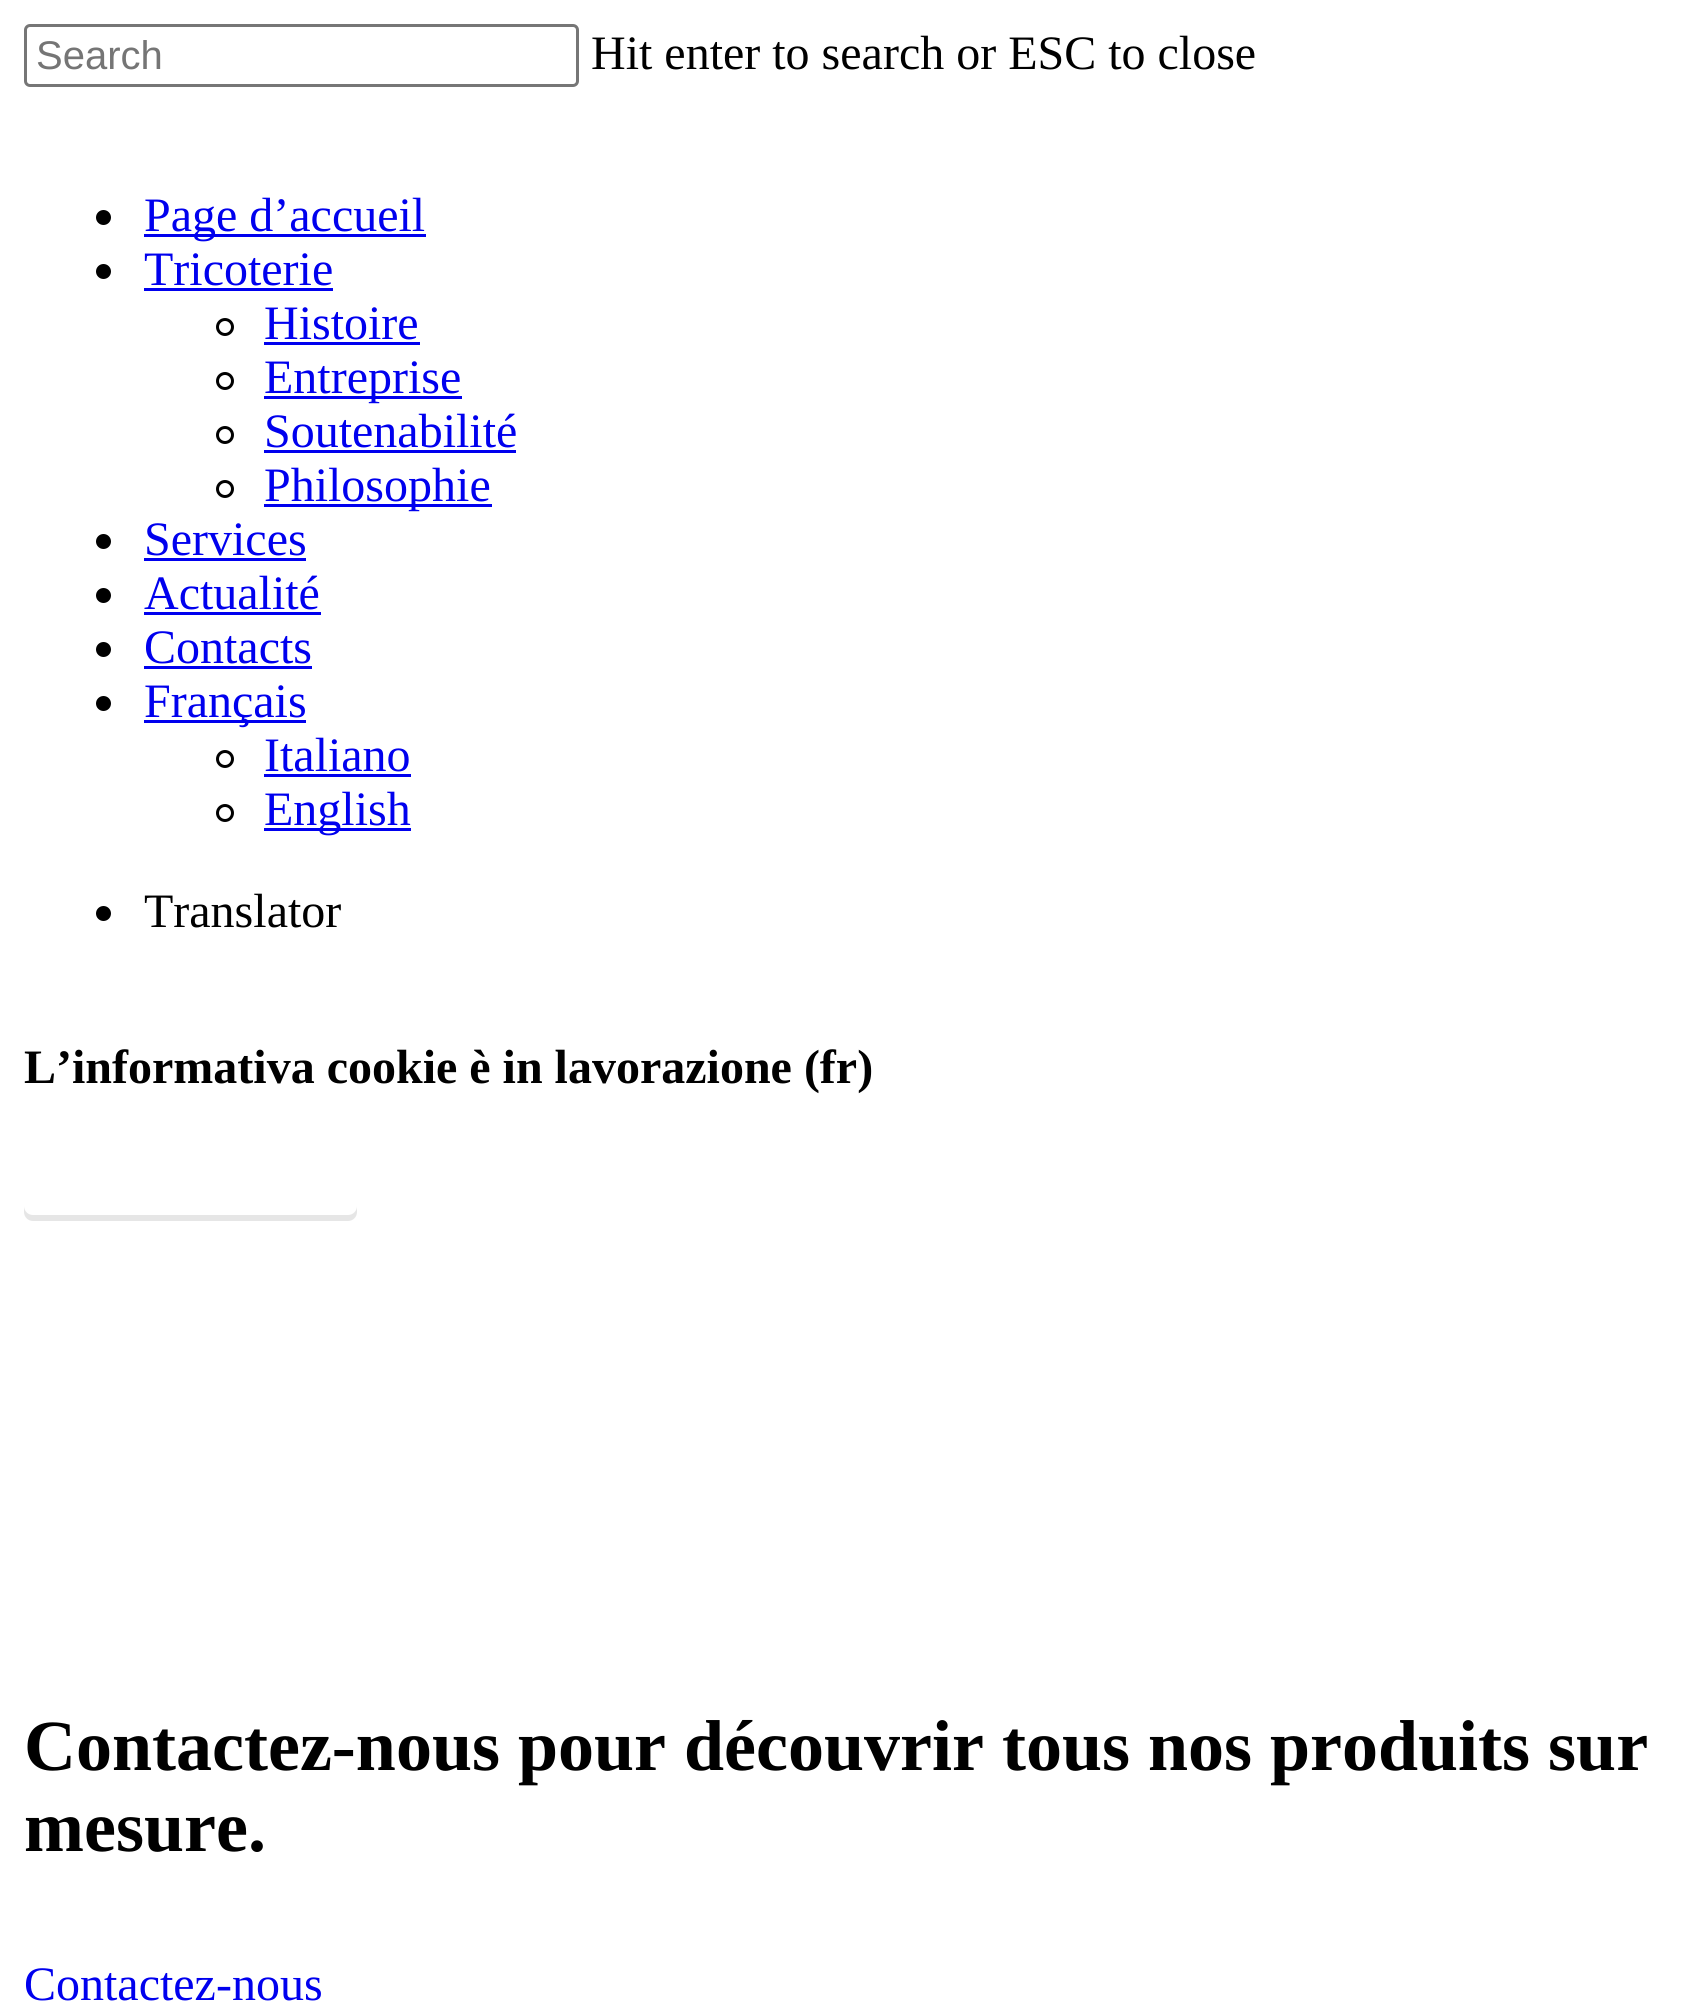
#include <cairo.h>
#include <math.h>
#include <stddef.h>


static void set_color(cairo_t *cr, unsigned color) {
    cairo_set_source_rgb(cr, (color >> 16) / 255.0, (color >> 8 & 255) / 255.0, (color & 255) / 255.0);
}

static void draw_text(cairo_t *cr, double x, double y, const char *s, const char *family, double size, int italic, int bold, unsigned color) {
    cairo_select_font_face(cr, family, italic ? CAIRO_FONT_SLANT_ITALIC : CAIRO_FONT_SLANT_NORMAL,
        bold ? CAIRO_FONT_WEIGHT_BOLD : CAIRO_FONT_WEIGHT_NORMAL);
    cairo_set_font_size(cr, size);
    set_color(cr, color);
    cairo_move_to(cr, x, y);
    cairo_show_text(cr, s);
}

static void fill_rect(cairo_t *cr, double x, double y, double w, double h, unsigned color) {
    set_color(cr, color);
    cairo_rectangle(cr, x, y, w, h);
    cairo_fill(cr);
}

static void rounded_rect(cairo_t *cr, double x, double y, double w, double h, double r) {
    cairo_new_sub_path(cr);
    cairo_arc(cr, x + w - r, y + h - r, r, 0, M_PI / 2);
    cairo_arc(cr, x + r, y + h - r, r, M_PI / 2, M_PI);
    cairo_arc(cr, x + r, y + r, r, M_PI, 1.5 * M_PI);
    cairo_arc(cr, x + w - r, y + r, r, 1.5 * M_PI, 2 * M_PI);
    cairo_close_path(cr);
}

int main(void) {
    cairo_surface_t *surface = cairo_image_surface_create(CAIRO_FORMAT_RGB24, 1703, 2002);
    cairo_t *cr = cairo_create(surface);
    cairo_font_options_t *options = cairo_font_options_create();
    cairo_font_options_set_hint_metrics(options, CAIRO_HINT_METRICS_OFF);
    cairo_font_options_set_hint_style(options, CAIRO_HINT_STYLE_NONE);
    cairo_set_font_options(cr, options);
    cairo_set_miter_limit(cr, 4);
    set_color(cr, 0xFFFFFF);
    cairo_paint(cr);
    rounded_rect(cr, 25.5, 25.5, 552, 60, 4.5);
    set_color(cr, 0x767676);
    cairo_set_line_width(cr, 3);
    cairo_stroke(cr);
    draw_text(cr, 36, 69, "Search", "Liberation Sans", 40, 0, 0, 0x757575);
    draw_text(cr, 591, 69, "Hit enter to search or ESC to close", "Liberation Serif", 48, 0, 0, 0x000000);
    cairo_new_path(cr);
    cairo_arc(cr, 103.5, 217.5, 7.5, 0, 2 * M_PI);
    cairo_fill(cr);
    fill_rect(cr, 144, 234, 282, 3, 0x0000EE);
    draw_text(cr, 144, 231, "Page d’accueil", "Liberation Serif", 48, 0, 0, 0x0000EE);
    set_color(cr, 0x000000);
    cairo_new_path(cr);
    cairo_arc(cr, 103.5, 271.5, 7.5, 0, 2 * M_PI);
    cairo_fill(cr);
    draw_text(cr, 144, 285, "Tricoterie", "Liberation Serif", 48, 0, 0, 0x0000EE);
    fill_rect(cr, 144, 288, 189, 3, 0x0000EE);
    cairo_new_path(cr);
    cairo_arc(cr, 225, 327, 7.5, 0, 2 * M_PI);
    set_color(cr, 0x000000);
    cairo_stroke(cr);
    draw_text(cr, 264, 339, "Histoire", "Liberation Serif", 48, 0, 0, 0x0000EE);
    fill_rect(cr, 264, 342, 156, 3, 0x0000EE);
    cairo_new_path(cr);
    cairo_arc(cr, 225, 381, 7.5, 0, 2 * M_PI);
    set_color(cr, 0x000000);
    cairo_stroke(cr);
    fill_rect(cr, 264, 396, 198, 3, 0x0000EE);
    draw_text(cr, 264, 393, "Entreprise", "Liberation Serif", 48, 0, 0, 0x0000EE);
    cairo_new_path(cr);
    cairo_arc(cr, 225, 435, 7.5, 0, 2 * M_PI);
    set_color(cr, 0x000000);
    cairo_stroke(cr);
    draw_text(cr, 264, 447, "Soutenabilité", "Liberation Serif", 48, 0, 0, 0x0000EE);
    fill_rect(cr, 264, 450, 252, 3, 0x0000EE);
    cairo_new_path(cr);
    cairo_arc(cr, 225, 489, 7.5, 0, 2 * M_PI);
    set_color(cr, 0x000000);
    cairo_stroke(cr);
    fill_rect(cr, 264, 504, 228, 3, 0x0000EE);
    draw_text(cr, 264, 501, "Philosophie", "Liberation Serif", 48, 0, 0, 0x0000EE);
    set_color(cr, 0x000000);
    cairo_new_path(cr);
    cairo_arc(cr, 103.5, 541.5, 7.5, 0, 2 * M_PI);
    cairo_fill(cr);
    draw_text(cr, 144, 555, "Services", "Liberation Serif", 48, 0, 0, 0x0000EE);
    fill_rect(cr, 144, 558, 162, 3, 0x0000EE);
    set_color(cr, 0x000000);
    cairo_new_path(cr);
    cairo_arc(cr, 103.5, 595.5, 7.5, 0, 2 * M_PI);
    cairo_fill(cr);
    draw_text(cr, 144, 609, "Actualité", "Liberation Serif", 48, 0, 0, 0x0000EE);
    fill_rect(cr, 144, 612, 177, 3, 0x0000EE);
    set_color(cr, 0x000000);
    cairo_new_path(cr);
    cairo_arc(cr, 103.5, 649.5, 7.5, 0, 2 * M_PI);
    cairo_fill(cr);
    draw_text(cr, 144, 663, "Contacts", "Liberation Serif", 48, 0, 0, 0x0000EE);
    fill_rect(cr, 144, 666, 168, 3, 0x0000EE);
    set_color(cr, 0x000000);
    cairo_new_path(cr);
    cairo_arc(cr, 103.5, 703.5, 7.5, 0, 2 * M_PI);
    cairo_fill(cr);
    fill_rect(cr, 144, 720, 162, 3, 0x0000EE);
    draw_text(cr, 144, 717, "Français", "Liberation Serif", 48, 0, 0, 0x0000EE);
    cairo_new_path(cr);
    cairo_arc(cr, 225, 759, 7.5, 0, 2 * M_PI);
    set_color(cr, 0x000000);
    cairo_stroke(cr);
    draw_text(cr, 264, 771, "Italiano", "Liberation Serif", 48, 0, 0, 0x0000EE);
    fill_rect(cr, 264, 774, 147, 3, 0x0000EE);
    cairo_new_path(cr);
    cairo_arc(cr, 225, 813, 7.5, 0, 2 * M_PI);
    set_color(cr, 0x000000);
    cairo_stroke(cr);
    fill_rect(cr, 264, 828, 147, 3, 0x0000EE);
    draw_text(cr, 264, 825, "English", "Liberation Serif", 48, 0, 0, 0x0000EE);
    set_color(cr, 0x000000);
    cairo_new_path(cr);
    cairo_arc(cr, 103.5, 913.5, 7.5, 0, 2 * M_PI);
    cairo_fill(cr);
    draw_text(cr, 144, 927, "Translator", "Liberation Serif", 48, 0, 0, 0x000000);
    draw_text(cr, 24, 1083, "L’informativa cookie è in lavorazione (fr)", "Liberation Serif", 48, 0, 1, 0x000000);
    set_color(cr, 0xE6E6E6);
    cairo_new_path(cr);
    cairo_move_to(cr, 24, 1206);
    cairo_line_to(cr, 24, 1212);
    cairo_curve_to(cr, 24, 1217, 28, 1221, 33, 1221);
    cairo_line_to(cr, 348, 1221);
    cairo_curve_to(cr, 353, 1221, 357, 1217, 357, 1212);
    cairo_line_to(cr, 357, 1206);
    cairo_curve_to(cr, 357, 1211, 353, 1215, 348, 1215);
    cairo_line_to(cr, 33, 1215);
    cairo_curve_to(cr, 28, 1215, 24, 1211, 24, 1206);
    cairo_close_path(cr);
    cairo_fill(cr);
    draw_text(cr, 24, 1770, "Contactez-nous pour découvrir tous nos produits sur", "Liberation Serif", 72, 0, 1, 0x000000);
    draw_text(cr, 24, 1851, "mesure.", "Liberation Serif", 72, 0, 1, 0x000000);
    draw_text(cr, 24, 2000, "Contactez-nous", "Liberation Serif", 48, 0, 0, 0x0000EE);
    cairo_surface_write_to_png(surface, "output.png");
    cairo_font_options_destroy(options);
    cairo_destroy(cr);
    cairo_surface_destroy(surface);
    return 0;
}
